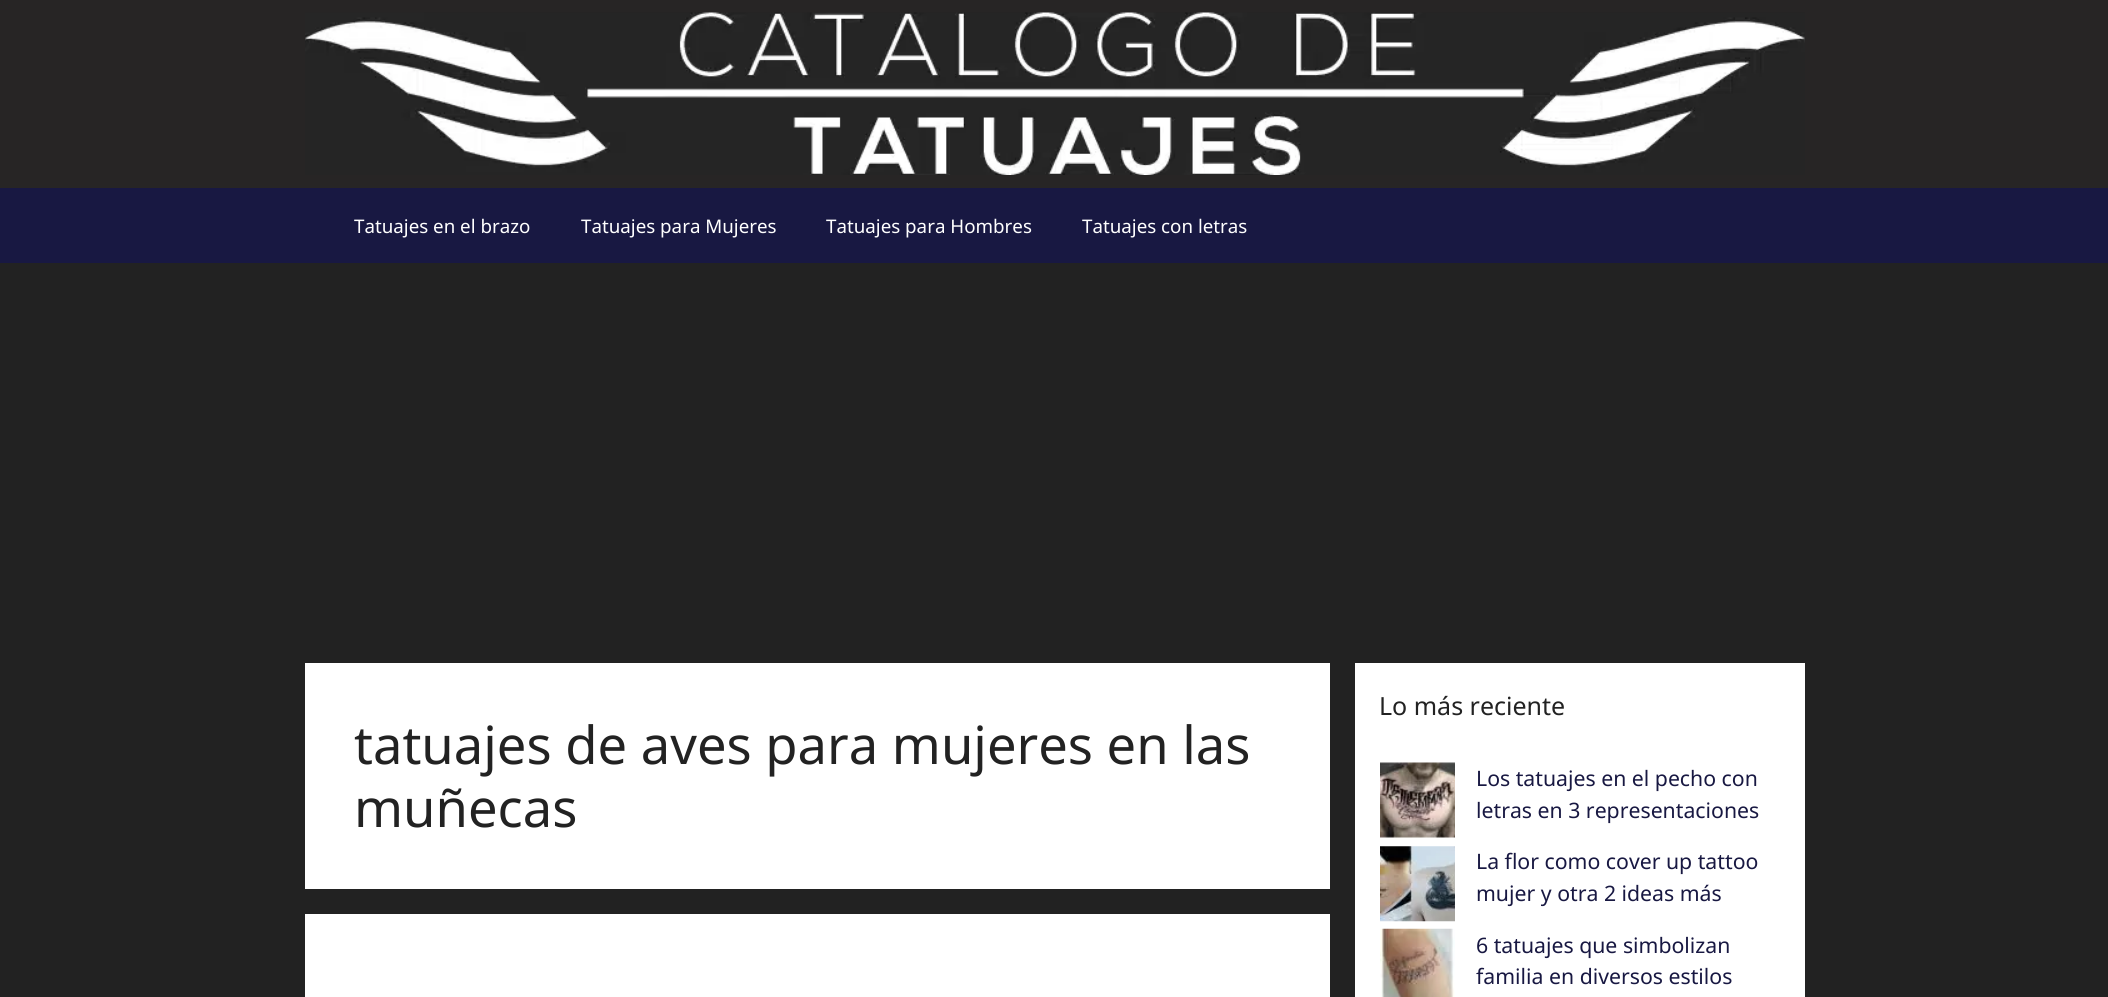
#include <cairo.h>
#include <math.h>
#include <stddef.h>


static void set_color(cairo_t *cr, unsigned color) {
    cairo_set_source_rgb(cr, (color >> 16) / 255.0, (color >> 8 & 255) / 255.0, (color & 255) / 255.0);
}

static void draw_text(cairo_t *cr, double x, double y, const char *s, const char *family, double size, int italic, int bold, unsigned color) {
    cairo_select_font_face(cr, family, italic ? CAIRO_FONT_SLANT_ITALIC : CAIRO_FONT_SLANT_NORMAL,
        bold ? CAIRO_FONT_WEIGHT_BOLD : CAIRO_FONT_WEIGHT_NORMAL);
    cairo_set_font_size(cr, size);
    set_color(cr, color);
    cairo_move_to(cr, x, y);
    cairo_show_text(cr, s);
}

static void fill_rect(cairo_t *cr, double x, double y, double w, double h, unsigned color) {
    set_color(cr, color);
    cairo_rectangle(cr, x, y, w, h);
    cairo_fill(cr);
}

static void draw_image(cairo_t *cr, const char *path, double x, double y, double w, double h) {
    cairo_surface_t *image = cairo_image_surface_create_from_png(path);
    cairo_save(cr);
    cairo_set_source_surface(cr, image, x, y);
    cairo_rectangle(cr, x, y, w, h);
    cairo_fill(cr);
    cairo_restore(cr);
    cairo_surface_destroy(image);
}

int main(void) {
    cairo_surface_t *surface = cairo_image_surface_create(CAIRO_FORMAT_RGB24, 2108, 997);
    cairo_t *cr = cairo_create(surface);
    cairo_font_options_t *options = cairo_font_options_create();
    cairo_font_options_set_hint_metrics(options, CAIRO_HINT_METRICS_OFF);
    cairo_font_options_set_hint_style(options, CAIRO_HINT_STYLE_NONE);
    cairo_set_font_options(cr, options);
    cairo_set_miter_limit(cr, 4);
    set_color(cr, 0x222222);
    cairo_paint(cr);
    fill_rect(cr, 0, 0, 2108, 188, 0x272525);
    draw_image(cr, "assets/img1.png", 305, 12, 1500, 163);
    fill_rect(cr, 0, 188, 2108, 75, 0x181842);
    draw_text(cr, 354, 233, "Tatuajes en el brazo", "Noto Sans", 18.75, 0, 0, 0xFFFFFF);
    draw_text(cr, 581, 233, "Tatuajes para Mujeres", "Noto Sans", 18.75, 0, 0, 0xFFFFFF);
    draw_text(cr, 826, 233, "Tatuajes para Hombres", "Noto Sans", 18.75, 0, 0, 0xFFFFFF);
    draw_text(cr, 1082, 233, "Tatuajes con letras", "Noto Sans", 18.75, 0, 0, 0xFFFFFF);
    fill_rect(cr, 305, 663, 1025, 226, 0xFFFFFF);
    draw_text(cr, 354, 764, "tatuajes de aves para mujeres en las", "Noto Sans", 52.5, 0, 0, 0x222222);
    draw_text(cr, 354, 827, "muñecas", "Noto Sans", 52.5, 0, 0, 0x222222);
    fill_rect(cr, 305, 914, 1025, 83, 0xFFFFFF);
    fill_rect(cr, 1355, 663, 450, 334, 0xFFFFFF);
    draw_text(cr, 1379, 715, "Lo más reciente", "Noto Sans", 25, 0, 0, 0x222222);
    draw_image(cr, "assets/img2.png", 1380, 762, 75, 76);
    draw_text(cr, 1476, 786, "Los tatuajes en el pecho con", "Noto Sans", 21.25, 0, 0, 0x181842);
    draw_text(cr, 1476, 818, "letras en 3 representaciones", "Noto Sans", 21.25, 0, 0, 0x181842);
    draw_image(cr, "assets/img3.png", 1380, 846, 75, 76);
    draw_text(cr, 1476, 869, "La flor como cover up tattoo", "Noto Sans", 21.25, 0, 0, 0x181842);
    draw_text(cr, 1476, 901, "mujer y otra 2 ideas más", "Noto Sans", 21.25, 0, 0, 0x181842);
    draw_image(cr, "assets/img4.png", 1380, 928, 75, 69);
    draw_text(cr, 1476, 953, "6 tatuajes que simbolizan", "Noto Sans", 21.25, 0, 0, 0x181842);
    draw_text(cr, 1476, 984, "familia en diversos estilos", "Noto Sans", 21.25, 0, 0, 0x181842);
    cairo_surface_write_to_png(surface, "output.png");
    cairo_font_options_destroy(options);
    cairo_destroy(cr);
    cairo_surface_destroy(surface);
    return 0;
}
